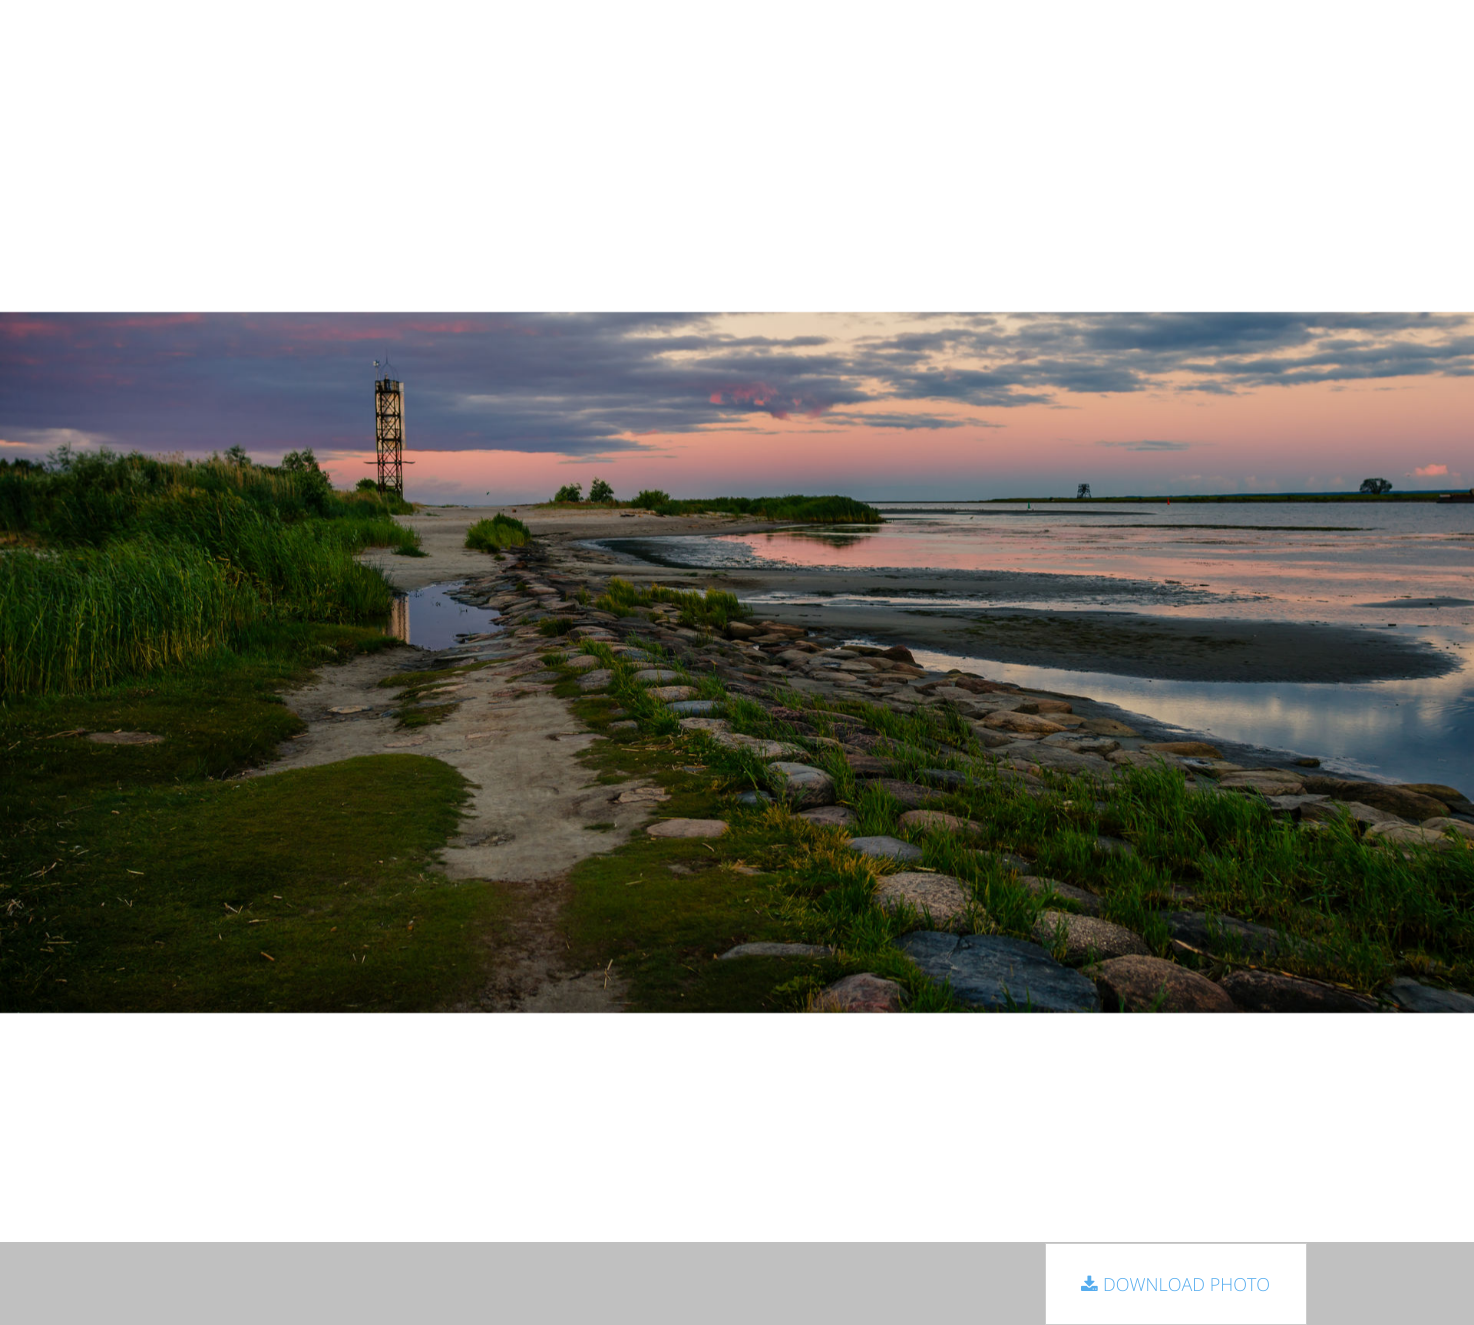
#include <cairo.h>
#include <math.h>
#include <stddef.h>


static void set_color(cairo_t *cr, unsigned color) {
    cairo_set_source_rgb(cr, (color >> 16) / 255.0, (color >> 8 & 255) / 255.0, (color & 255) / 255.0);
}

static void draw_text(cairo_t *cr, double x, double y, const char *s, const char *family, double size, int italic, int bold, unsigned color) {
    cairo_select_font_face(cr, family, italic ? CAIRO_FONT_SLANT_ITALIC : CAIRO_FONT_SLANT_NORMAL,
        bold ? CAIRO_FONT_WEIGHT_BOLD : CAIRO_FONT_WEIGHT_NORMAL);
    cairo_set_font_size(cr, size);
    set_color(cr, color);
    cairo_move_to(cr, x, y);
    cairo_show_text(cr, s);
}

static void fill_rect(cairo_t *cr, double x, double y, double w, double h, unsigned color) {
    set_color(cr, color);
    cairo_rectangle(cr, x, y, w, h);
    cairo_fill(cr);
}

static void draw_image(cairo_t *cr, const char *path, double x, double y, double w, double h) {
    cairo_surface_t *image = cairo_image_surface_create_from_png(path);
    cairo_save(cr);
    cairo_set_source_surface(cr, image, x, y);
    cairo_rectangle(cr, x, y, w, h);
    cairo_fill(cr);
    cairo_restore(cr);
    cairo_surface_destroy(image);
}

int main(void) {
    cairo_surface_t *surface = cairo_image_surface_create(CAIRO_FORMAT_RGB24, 1474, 1325);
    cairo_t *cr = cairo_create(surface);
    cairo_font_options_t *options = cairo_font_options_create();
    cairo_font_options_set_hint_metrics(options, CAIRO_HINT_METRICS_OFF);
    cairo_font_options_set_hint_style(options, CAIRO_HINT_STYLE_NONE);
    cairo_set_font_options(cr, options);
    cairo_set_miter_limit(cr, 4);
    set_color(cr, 0xFFFFFF);
    cairo_paint(cr);
    draw_image(cr, "assets/img1.png", 0, 311, 1474, 703);
    fill_rect(cr, 0, 1242, 1474, 83, 0xC0C0C0);
    set_color(cr, 0xFFFFFF);
    cairo_rectangle(cr, 1045.5, 1243.5, 261, 81);
    cairo_fill_preserve(cr);
    set_color(cr, 0xCCCCCC);
    cairo_set_line_width(cr, 1);
    cairo_stroke(cr);
    draw_image(cr, "assets/img2.png", 1081, 1275, 17, 16);
    draw_text(cr, 1103, 1291, "DOWNLOAD PHOTO", "Open Sans Light", 18, 0, 0, 0x55ACEE);
    cairo_surface_write_to_png(surface, "output.png");
    cairo_font_options_destroy(options);
    cairo_destroy(cr);
    cairo_surface_destroy(surface);
    return 0;
}
